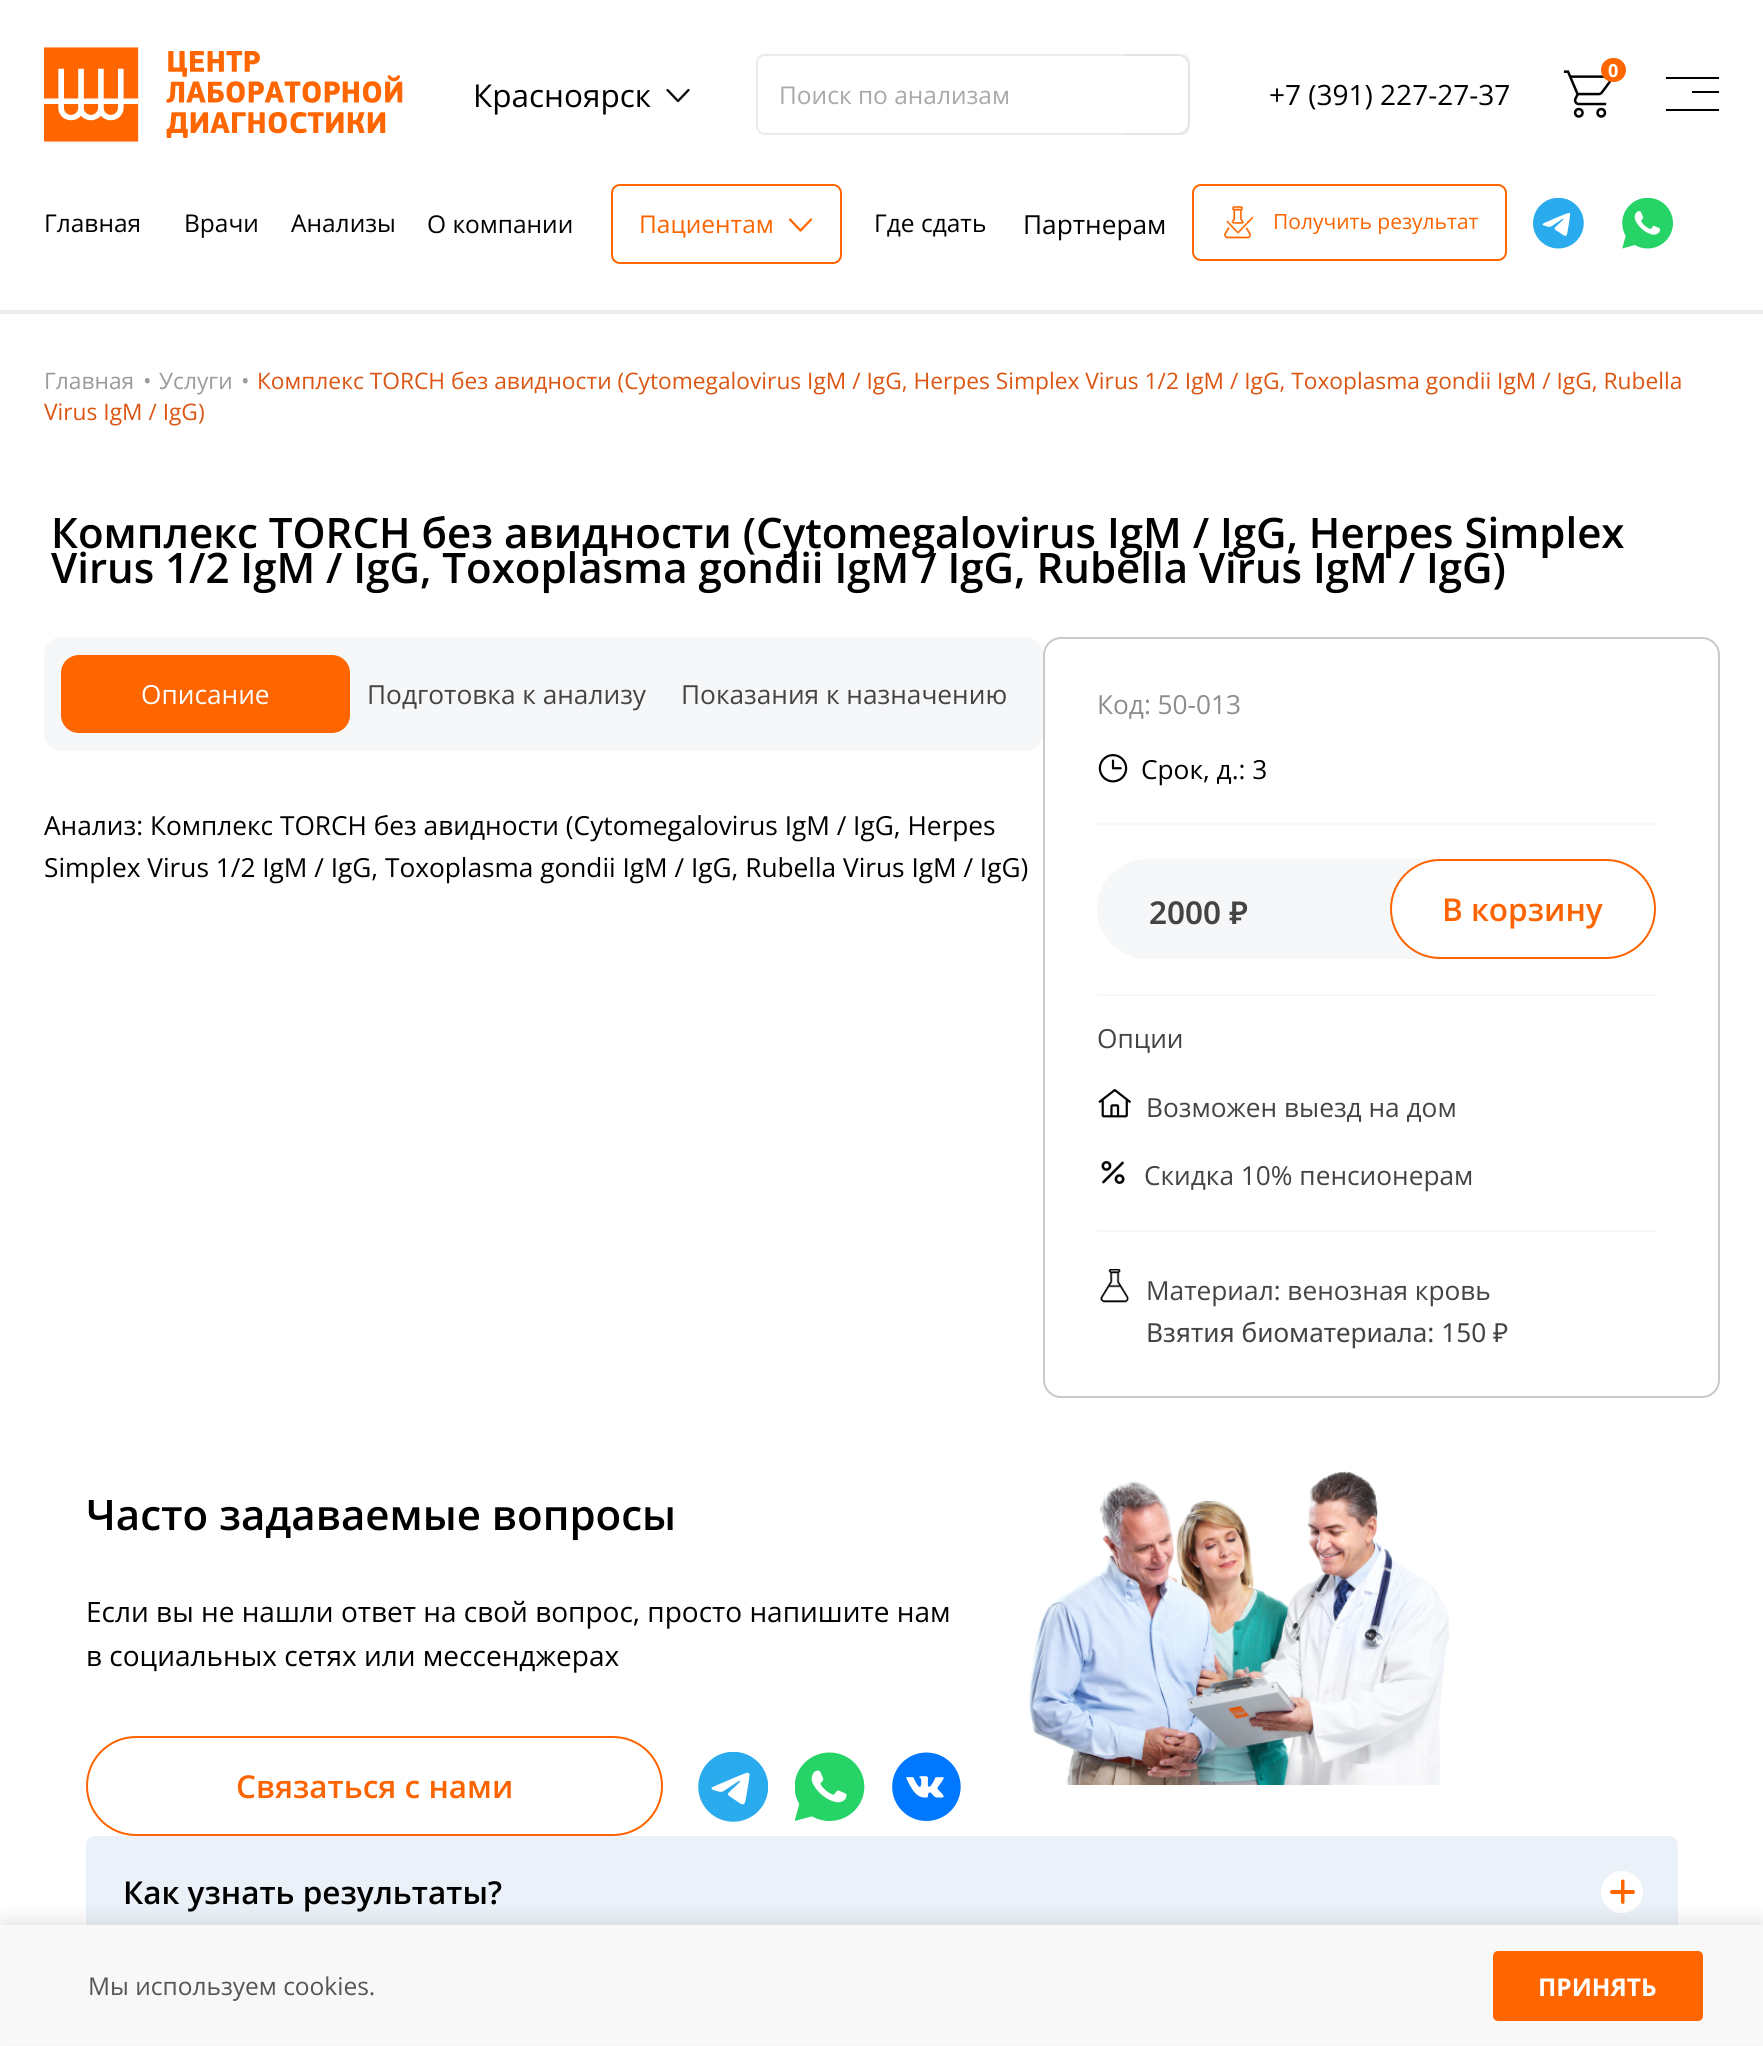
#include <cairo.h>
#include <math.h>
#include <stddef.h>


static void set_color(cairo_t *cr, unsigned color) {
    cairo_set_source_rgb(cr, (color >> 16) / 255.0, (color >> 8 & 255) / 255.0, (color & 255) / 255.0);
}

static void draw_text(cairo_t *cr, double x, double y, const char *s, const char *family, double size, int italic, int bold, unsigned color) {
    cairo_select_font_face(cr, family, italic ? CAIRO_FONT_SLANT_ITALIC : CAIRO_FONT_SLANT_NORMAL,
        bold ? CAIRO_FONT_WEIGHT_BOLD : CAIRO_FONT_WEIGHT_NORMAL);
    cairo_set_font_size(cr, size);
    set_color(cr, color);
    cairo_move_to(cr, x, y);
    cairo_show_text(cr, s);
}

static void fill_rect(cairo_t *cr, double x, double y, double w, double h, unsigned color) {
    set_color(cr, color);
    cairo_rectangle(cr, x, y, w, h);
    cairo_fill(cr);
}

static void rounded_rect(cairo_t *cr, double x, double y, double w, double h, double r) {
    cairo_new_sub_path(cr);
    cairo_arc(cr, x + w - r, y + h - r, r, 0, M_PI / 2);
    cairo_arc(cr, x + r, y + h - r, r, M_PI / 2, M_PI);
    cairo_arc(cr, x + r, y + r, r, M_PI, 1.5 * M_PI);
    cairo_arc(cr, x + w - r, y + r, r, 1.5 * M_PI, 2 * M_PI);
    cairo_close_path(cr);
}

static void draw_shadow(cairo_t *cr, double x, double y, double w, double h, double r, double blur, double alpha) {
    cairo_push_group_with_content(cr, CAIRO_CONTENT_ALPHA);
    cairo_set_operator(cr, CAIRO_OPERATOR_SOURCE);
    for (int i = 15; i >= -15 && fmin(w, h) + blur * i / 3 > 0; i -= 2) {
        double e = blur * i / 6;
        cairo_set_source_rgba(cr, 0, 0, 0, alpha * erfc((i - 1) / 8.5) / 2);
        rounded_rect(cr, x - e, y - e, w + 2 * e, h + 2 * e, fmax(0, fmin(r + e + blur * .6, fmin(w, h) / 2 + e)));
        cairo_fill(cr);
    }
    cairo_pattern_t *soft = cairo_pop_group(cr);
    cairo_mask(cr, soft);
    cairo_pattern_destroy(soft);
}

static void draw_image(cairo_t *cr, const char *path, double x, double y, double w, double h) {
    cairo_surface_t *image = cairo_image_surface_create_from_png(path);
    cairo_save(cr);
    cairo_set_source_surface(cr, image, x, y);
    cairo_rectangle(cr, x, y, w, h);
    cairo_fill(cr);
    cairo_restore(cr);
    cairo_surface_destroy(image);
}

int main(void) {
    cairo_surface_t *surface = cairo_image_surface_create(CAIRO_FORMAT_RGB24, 1763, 2046);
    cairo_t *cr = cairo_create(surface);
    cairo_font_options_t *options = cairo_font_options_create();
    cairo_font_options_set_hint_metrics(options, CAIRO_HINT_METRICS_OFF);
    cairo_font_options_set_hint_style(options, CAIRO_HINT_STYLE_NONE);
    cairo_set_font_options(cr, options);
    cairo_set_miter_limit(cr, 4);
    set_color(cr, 0xFFFFFF);
    cairo_paint(cr);
    draw_image(cr, "assets/img1.png", 44, 47, 359, 95);
    draw_image(cr, "assets/img2.png", 1563, 70, 49, 48);
    set_color(cr, 0xFF6600);
    rounded_rect(cr, 1601, 58, 25, 24, 12);
    cairo_fill(cr);
    draw_text(cr, 1608, 77, "0", "Open Sans", 18, 0, 1, 0xFFFFFF);
    draw_text(cr, 473, 107, "Красноярск", "Open Sans", 31.5, 0, 0, 0x000000);
    draw_image(cr, "assets/img3.png", 666, 88, 24, 15);
    rounded_rect(cr, 757, 55, 432, 79, 8);
    set_color(cr, 0xE9ECEF);
    cairo_stroke(cr);
    draw_text(cr, 779, 104, "Поиск по анализам", "Open Sans", 24.5, 0, 0, 0xA9A9A9);
    set_color(cr, 0xFFFFFF);
    cairo_new_path(cr);
    cairo_move_to(cr, 1124, 54);
    cairo_line_to(cr, 1178, 54);
    cairo_curve_to(cr, 1184.5, 54, 1190, 59.5, 1190, 66);
    cairo_line_to(cr, 1190, 123);
    cairo_curve_to(cr, 1190, 129.5, 1184.5, 135, 1178, 135);
    cairo_line_to(cr, 1124, 135);
    cairo_close_path(cr);
    cairo_fill(cr);
    set_color(cr, 0xE5E5E5);
    cairo_set_fill_rule(cr, CAIRO_FILL_RULE_EVEN_ODD);
    cairo_new_path(cr);
    cairo_move_to(cr, 1124, 54);
    cairo_line_to(cr, 1178, 54);
    cairo_curve_to(cr, 1185, 54, 1190, 60, 1190, 66);
    cairo_line_to(cr, 1190, 122);
    cairo_curve_to(cr, 1190, 129, 1185, 135, 1178, 135);
    cairo_line_to(cr, 1124, 135);
    cairo_close_path(cr);
    cairo_move_to(cr, 1124, 56);
    cairo_line_to(cr, 1178, 56);
    cairo_curve_to(cr, 1184, 56, 1188, 61, 1188, 66);
    cairo_line_to(cr, 1188, 122);
    cairo_curve_to(cr, 1188, 128, 1184, 133, 1178, 133);
    cairo_line_to(cr, 1124, 133);
    cairo_close_path(cr);
    cairo_fill(cr);
    draw_text(cr, 1269, 105, "+7 (391) 227-27-37", "Open Sans", 28, 0, 0, 0x000000);
    fill_rect(cr, 1666, 77, 53, 2, 0x000000);
    fill_rect(cr, 1692, 91, 27, 2, 0x000000);
    fill_rect(cr, 1666, 109, 53, 2, 0x000000);
    draw_text(cr, 44, 232, "Главная", "Open Sans", 24.5, 0, 0, 0x000000);
    draw_text(cr, 184, 232, "Врачи", "Open Sans", 24.5, 0, 0, 0x000000);
    draw_text(cr, 291, 232, "Анализы", "Open Sans", 24.5, 0, 0, 0x000000);
    draw_text(cr, 427, 233, "О компании", "Open Sans", 24.5, 0, 0, 0x000000);
    rounded_rect(cr, 612, 185, 229, 78, 8);
    set_color(cr, 0xFF6600);
    cairo_stroke(cr);
    draw_text(cr, 639, 233, "Пациентам", "Open Sans", 24.5, 0, 0, 0xFB6400);
    draw_image(cr, "assets/img4.png", 788, 218, 25, 14);
    draw_text(cr, 874, 232, "Где сдать", "Open Sans", 24.5, 0, 0, 0x000000);
    draw_text(cr, 1023, 234, "Партнерам", "Open Sans", 26.25, 0, 0, 0x000000);
    rounded_rect(cr, 1193, 185, 313, 75, 8);
    set_color(cr, 0xFF6600);
    cairo_stroke(cr);
    draw_image(cr, "assets/img5.png", 1224, 206, 29, 33);
    draw_text(cr, 1273, 229, "Получить результат", "Open Sans", 21, 0, 0, 0xFB6400);
    draw_image(cr, "assets/img6.png", 1533, 198, 51, 51);
    draw_image(cr, "assets/img7.png", 1622, 198, 51, 51);
    fill_rect(cr, 0, 310, 1763, 4, 0xE9ECEF);
    draw_text(cr, 44, 389, "Главная", "Open Sans", 22.75, 0, 0, 0x9B9B9B);
    draw_text(cr, 143, 389, "•", "Open Sans", 22.75, 0, 0, 0x9B9B9B);
    draw_text(cr, 159, 389, "Услуги", "Open Sans", 22.75, 0, 0, 0x9B9B9B);
    draw_text(cr, 241, 389, "•", "Open Sans", 22.75, 0, 0, 0x9B9B9B);
    draw_text(cr, 257, 389, "Комплекс TORCH без авидности (Cytomegalovirus IgM / IgG, Herpes Simplex Virus 1/2 IgM / IgG, Toxoplasma gondii IgM / IgG, Rubella", "Open Sans", 22.75, 0, 0, 0xDC5512);
    draw_text(cr, 44, 420, "Virus IgM / IgG)", "Open Sans", 22.75, 0, 0, 0xDC5512);
    draw_text(cr, 51, 548, "Комплекс TORCH без авидности (Cytomegalovirus IgM / IgG, Herpes Simplex", "Open Sans SemiBold", 42, 0, 0, 0x000000);
    draw_text(cr, 51, 583, "Virus 1/2 IgM / IgG, Toxoplasma gondii IgM / IgG, Rubella Virus IgM / IgG)", "Open Sans SemiBold", 42, 0, 0, 0x000000);
    set_color(cr, 0xF6F7F9);
    rounded_rect(cr, 44, 637, 999, 114, 18);
    cairo_fill(cr);
    set_color(cr, 0xFF6600);
    rounded_rect(cr, 61, 655, 289, 78, 18);
    cairo_fill(cr);
    draw_text(cr, 141, 704, "Описание", "Open Sans", 26.25, 0, 0, 0xFFFFFF);
    draw_text(cr, 367, 704, "Подготовка к анализу", "Open Sans", 26.25, 0, 0, 0x444444);
    draw_text(cr, 681, 704, "Показания к назначению", "Open Sans", 26.25, 0, 0, 0x444444);
    draw_text(cr, 44, 835, "Анализ: Комплекс TORCH без авидности (Cytomegalovirus IgM / IgG, Herpes", "Open Sans", 26.25, 0, 0, 0x000000);
    draw_text(cr, 44, 877, "Simplex Virus 1/2 IgM / IgG, Toxoplasma gondii IgM / IgG, Rubella Virus IgM / IgG)", "Open Sans", 26.25, 0, 0, 0x000000);
    rounded_rect(cr, 1044, 638, 675, 759, 17);
    set_color(cr, 0xCCC8C8);
    cairo_stroke(cr);
    draw_text(cr, 1097, 714, "Код: 50-013", "Open Sans", 26.25, 0, 0, 0x8D8D8D);
    draw_image(cr, "assets/img8.png", 1098, 754, 30, 29);
    draw_text(cr, 1141, 779, "Срок, д.: 3", "Open Sans", 26.25, 0, 0, 0x000000);
    fill_rect(cr, 1097, 823, 559, 2, 0xF6F7F9);
    fill_rect(cr, 1097, 994, 559, 2, 0xF6F7F9);
    rounded_rect(cr, 1097, 859, 559, 100, 50);
    cairo_fill(cr);
    draw_text(cr, 1149, 924, "2000 ₽", "Noto Sans SemiBold", 31.5, 0, 0, 0x444444);
    set_color(cr, 0xFFFFFF);
    rounded_rect(cr, 1391, 860, 264, 98, 49);
    cairo_fill_preserve(cr);
    set_color(cr, 0xFB6400);
    cairo_stroke(cr);
    draw_text(cr, 1442, 921, "В корзину", "Open Sans SemiBold", 31.5, 0, 0, 0xFB6400);
    draw_text(cr, 1097, 1048, "Опции", "Open Sans", 26.25, 0, 0, 0x444444);
    draw_image(cr, "assets/img9.png", 1098, 1089, 34, 29);
    draw_text(cr, 1146, 1117, "Возможен выезд на дом", "Open Sans", 26.25, 0, 0, 0x444444);
    draw_image(cr, "assets/img10.png", 1101, 1160, 24, 25);
    draw_text(cr, 1144, 1185, "Скидка 10% пенсионерам", "Open Sans", 26.25, 0, 0, 0x444444);
    fill_rect(cr, 1097, 1230, 559, 2, 0xF6F7F9);
    draw_image(cr, "assets/img11.png", 1100, 1269, 29, 34);
    draw_text(cr, 1146, 1300, "Материал: венозная кровь", "Open Sans", 26.25, 0, 0, 0x444444);
    draw_text(cr, 1146, 1342, "Взятия биоматериала: 150 ₽", "Noto Sans", 26.25, 0, 0, 0x444444);
    draw_text(cr, 86, 1530, "Часто задаваемые вопросы", "Open Sans SemiBold", 42, 0, 0, 0x000000);
    draw_text(cr, 86, 1622, "Если вы не нашли ответ на свой вопрос, просто напишите нам", "Open Sans", 28, 0, 0, 0x000000);
    draw_text(cr, 86, 1666, "в социальных сетях или мессенджерах", "Open Sans", 28, 0, 0, 0x000000);
    rounded_rect(cr, 87, 1737, 575, 98, 49);
    set_color(cr, 0xFB6400);
    cairo_stroke(cr);
    draw_text(cr, 236, 1798, "Связаться с нами", "Open Sans SemiBold", 31.5, 0, 0, 0xFB6400);
    draw_image(cr, "assets/img12.png", 698, 1752, 70, 70);
    draw_image(cr, "assets/img13.png", 795, 1752, 70, 69);
    draw_image(cr, "assets/img14.png", 892, 1752, 69, 69);
    draw_image(cr, "assets/img15.png", 1029, 1471, 421, 314);
    set_color(cr, 0xEBF1F8);
    rounded_rect(cr, 86, 1836, 1592, 112, 9);
    cairo_fill(cr);
    draw_text(cr, 123, 1904, "Как узнать результаты?", "Open Sans SemiBold", 31.5, 0, 0, 0x000000);
    set_color(cr, 0xFFFFFF);
    cairo_new_path(cr);
    cairo_arc(cr, 1622, 1892, 21, 0, 2 * M_PI);
    cairo_fill(cr);
    set_color(cr, 0xFF6600);
    rounded_rect(cr, 1610, 1890, 25, 4, 2);
    cairo_fill(cr);
    cairo_set_fill_rule(cr, CAIRO_FILL_RULE_WINDING);
    cairo_new_path(cr);
    cairo_move_to(cr, 1624.5, 1881);
    cairo_line_to(cr, 1624.5, 1902);
    cairo_curve_to(cr, 1624.5, 1903, 1624, 1904, 1623, 1904);
    cairo_curve_to(cr, 1622, 1904, 1621, 1903, 1621, 1902);
    cairo_line_to(cr, 1621, 1881);
    cairo_curve_to(cr, 1621, 1880.5, 1622, 1879.5, 1623, 1879.5);
    cairo_curve_to(cr, 1624, 1879.5, 1624.5, 1880.5, 1624.5, 1881);
    cairo_close_path(cr);
    cairo_fill(cr);
    set_color(cr, 0x000000);
    draw_shadow(cr, 0, 1920, 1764, 122, 0, 9, 0.1);
    fill_rect(cr, 0, 1925, 1763, 120, 0xF8F8F8);
    draw_text(cr, 88, 1995, "Мы используем cookies.", "Open Sans", 24.5, 0, 0, 0x555555);
    set_color(cr, 0xFF6600);
    rounded_rect(cr, 1493, 1951, 210, 70, 5);
    cairo_fill(cr);
    draw_text(cr, 1538, 1996, "ПРИНЯТЬ", "Open Sans", 24.5, 0, 1, 0xFFFFFF);
    cairo_surface_write_to_png(surface, "output.png");
    cairo_font_options_destroy(options);
    cairo_destroy(cr);
    cairo_surface_destroy(surface);
    return 0;
}
